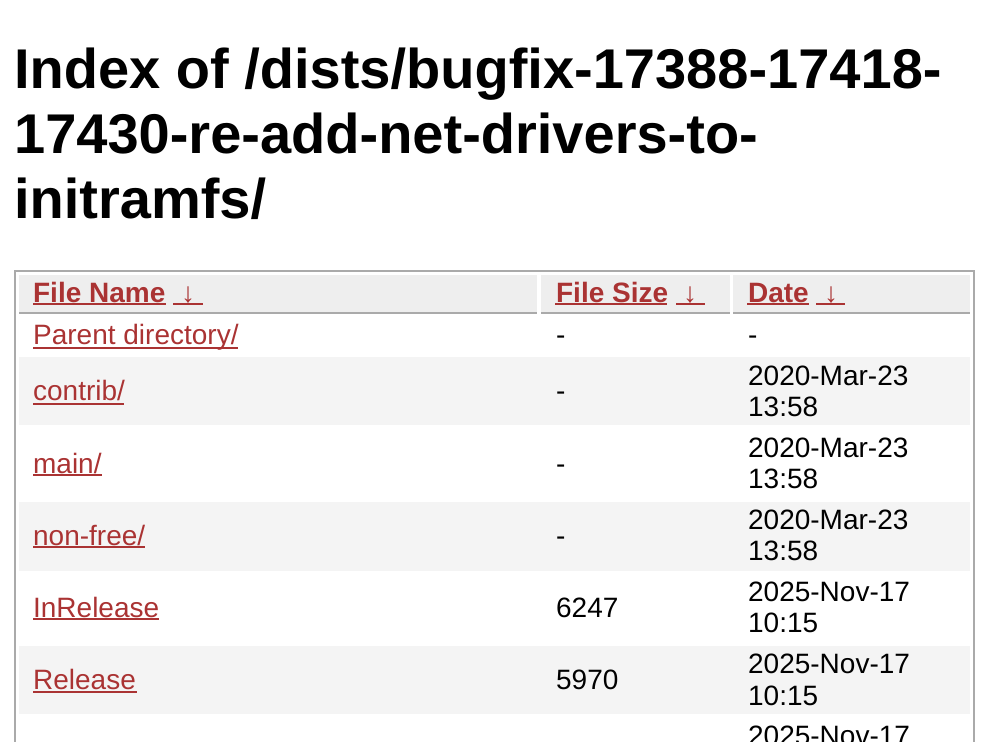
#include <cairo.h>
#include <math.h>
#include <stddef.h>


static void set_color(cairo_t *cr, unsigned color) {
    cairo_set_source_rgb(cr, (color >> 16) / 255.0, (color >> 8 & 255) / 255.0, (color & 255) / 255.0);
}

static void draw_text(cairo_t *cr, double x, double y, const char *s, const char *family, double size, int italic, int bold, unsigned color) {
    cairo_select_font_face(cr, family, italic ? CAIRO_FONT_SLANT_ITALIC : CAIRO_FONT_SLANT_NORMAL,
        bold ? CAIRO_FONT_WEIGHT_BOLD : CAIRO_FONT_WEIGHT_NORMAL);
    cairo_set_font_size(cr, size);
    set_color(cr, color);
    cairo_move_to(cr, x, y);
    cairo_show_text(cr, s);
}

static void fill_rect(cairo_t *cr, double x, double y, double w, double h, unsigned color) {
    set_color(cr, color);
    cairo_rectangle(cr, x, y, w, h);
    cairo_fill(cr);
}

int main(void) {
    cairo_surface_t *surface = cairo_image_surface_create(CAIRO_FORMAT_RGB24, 988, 742);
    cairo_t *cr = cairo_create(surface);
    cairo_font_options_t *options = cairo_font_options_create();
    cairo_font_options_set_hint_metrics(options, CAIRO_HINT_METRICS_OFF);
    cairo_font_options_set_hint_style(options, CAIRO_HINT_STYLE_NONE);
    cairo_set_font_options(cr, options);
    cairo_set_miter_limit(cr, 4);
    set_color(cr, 0xFFFFFF);
    cairo_paint(cr);
    draw_text(cr, 14, 88, "Index of /dists/bugfix-17388-17418-", "Liberation Sans", 56, 0, 1, 0x000000);
    draw_text(cr, 14, 153, "17430-re-add-net-drivers-to-", "Liberation Sans", 56, 0, 1, 0x000000);
    draw_text(cr, 14, 218, "initramfs/", "Liberation Sans", 56, 0, 1, 0x000000);
    cairo_rectangle(cr, 15, 271, 959, 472);
    set_color(cr, 0xAAAAAA);
    cairo_stroke(cr);
    fill_rect(cr, 19, 275, 518, 37, 0xEEEEEE);
    fill_rect(cr, 19, 312, 518, 2, 0xAAAAAA);
    draw_text(cr, 33, 302, "File Name", "Liberation Sans", 28, 0, 1, 0xAA3333);
    fill_rect(cr, 33, 303, 133, 2, 0xAA3333);
    draw_text(cr, 181, 302, "↓", "Liberation Sans", 28, 0, 1, 0xAA3333);
    fill_rect(cr, 173, 303, 30, 2, 0xAA3333);
    fill_rect(cr, 541, 275, 189, 37, 0xEEEEEE);
    fill_rect(cr, 541, 312, 189, 2, 0xAAAAAA);
    draw_text(cr, 556, 302, "File Size", "Liberation Sans", 28, 0, 1, 0xAA3333);
    fill_rect(cr, 555, 303, 112, 2, 0xAA3333);
    draw_text(cr, 683, 302, "↓", "Liberation Sans", 28, 0, 1, 0xAA3333);
    fill_rect(cr, 676, 303, 29, 2, 0xAA3333);
    fill_rect(cr, 733, 275, 237, 37, 0xEEEEEE);
    fill_rect(cr, 733, 312, 237, 2, 0xAAAAAA);
    draw_text(cr, 748, 302, "Date", "Liberation Sans", 28, 0, 1, 0xAA3333);
    fill_rect(cr, 747, 303, 62, 2, 0xAA3333);
    draw_text(cr, 824, 302, "↓", "Liberation Sans", 28, 0, 1, 0xAA3333);
    fill_rect(cr, 816, 303, 29, 2, 0xAA3333);
    fill_rect(cr, 33, 347, 205, 2, 0xAA3333);
    draw_text(cr, 33, 344, "Parent directory/", "Liberation Sans", 28, 0, 0, 0xAA3333);
    draw_text(cr, 556, 344, "-", "Liberation Sans", 28, 0, 0, 0x000000);
    draw_text(cr, 748, 344, "-", "Liberation Sans", 28, 0, 0, 0x000000);
    fill_rect(cr, 19, 357, 951, 68, 0xF4F4F4);
    draw_text(cr, 33, 400, "contrib/", "Liberation Sans", 28, 0, 0, 0xAA3333);
    fill_rect(cr, 33, 403, 91, 2, 0xAA3333);
    draw_text(cr, 556, 400, "-", "Liberation Sans", 28, 0, 0, 0x000000);
    draw_text(cr, 748, 385, "2020-Mar-23", "Liberation Sans", 28, 0, 0, 0x000000);
    draw_text(cr, 748, 416, "13:58", "Liberation Sans", 28, 0, 0, 0x000000);
    draw_text(cr, 33, 473, "main/", "Liberation Sans", 28, 0, 0, 0xAA3333);
    fill_rect(cr, 33, 474, 69, 2, 0xAA3333);
    draw_text(cr, 556, 473, "-", "Liberation Sans", 28, 0, 0, 0x000000);
    draw_text(cr, 748, 457, "2020-Mar-23", "Liberation Sans", 28, 0, 0, 0x000000);
    draw_text(cr, 748, 488, "13:58", "Liberation Sans", 28, 0, 0, 0x000000);
    fill_rect(cr, 19, 502, 951, 69, 0xF4F4F4);
    draw_text(cr, 33, 545, "non-free/", "Liberation Sans", 28, 0, 0, 0xAA3333);
    fill_rect(cr, 33, 546, 112, 2, 0xAA3333);
    draw_text(cr, 556, 545, "-", "Liberation Sans", 28, 0, 0, 0x000000);
    draw_text(cr, 748, 529, "2020-Mar-23", "Liberation Sans", 28, 0, 0, 0x000000);
    draw_text(cr, 748, 560, "13:58", "Liberation Sans", 28, 0, 0, 0x000000);
    draw_text(cr, 33, 617, "InRelease", "Liberation Sans", 28, 0, 0, 0xAA3333);
    fill_rect(cr, 33, 618, 126, 2, 0xAA3333);
    draw_text(cr, 556, 617, "6247", "Liberation Sans", 28, 0, 0, 0x000000);
    draw_text(cr, 748, 601, "2025-Nov-17", "Liberation Sans", 28, 0, 0, 0x000000);
    draw_text(cr, 748, 632, "10:15", "Liberation Sans", 28, 0, 0, 0x000000);
    fill_rect(cr, 19, 646, 951, 68, 0xF4F4F4);
    draw_text(cr, 33, 689, "Release", "Liberation Sans", 28, 0, 0, 0xAA3333);
    fill_rect(cr, 33, 691, 104, 2, 0xAA3333);
    draw_text(cr, 556, 689, "5970", "Liberation Sans", 28, 0, 0, 0x000000);
    draw_text(cr, 748, 673, "2025-Nov-17", "Liberation Sans", 28, 0, 0, 0x000000);
    draw_text(cr, 748, 705, "10:15", "Liberation Sans", 28, 0, 0, 0x000000);
    draw_text(cr, 748, 745, "2025-Nov-17", "Liberation Sans", 28, 0, 0, 0x000000);
    cairo_surface_write_to_png(surface, "output.png");
    cairo_font_options_destroy(options);
    cairo_destroy(cr);
    cairo_surface_destroy(surface);
    return 0;
}
